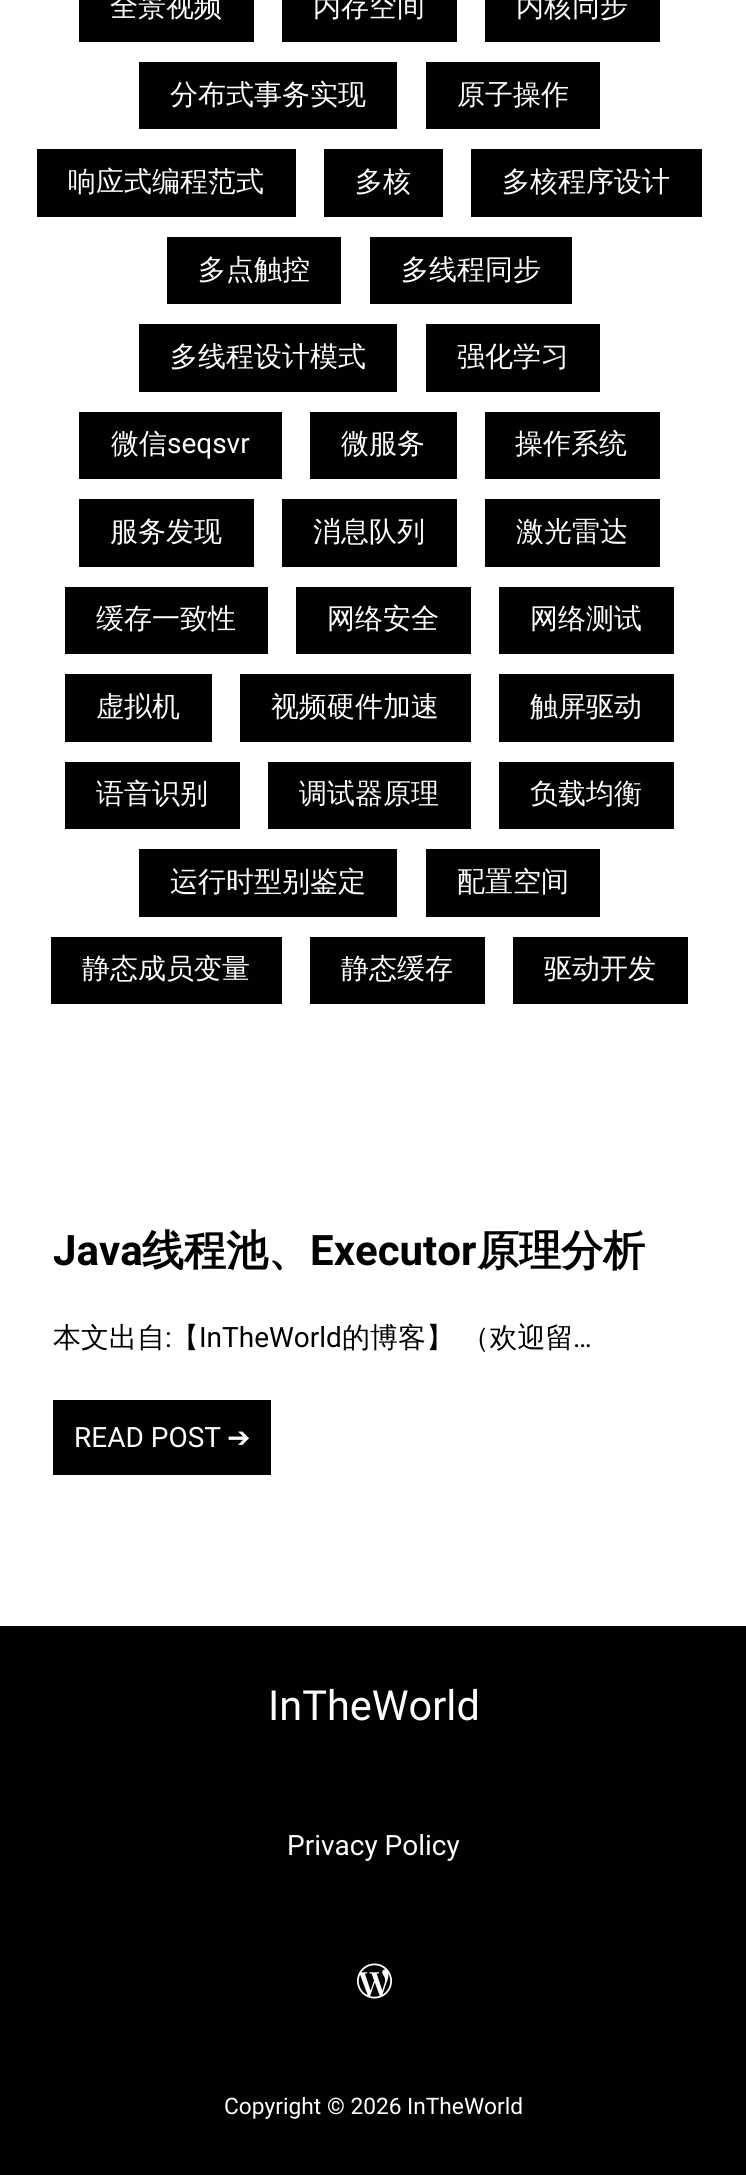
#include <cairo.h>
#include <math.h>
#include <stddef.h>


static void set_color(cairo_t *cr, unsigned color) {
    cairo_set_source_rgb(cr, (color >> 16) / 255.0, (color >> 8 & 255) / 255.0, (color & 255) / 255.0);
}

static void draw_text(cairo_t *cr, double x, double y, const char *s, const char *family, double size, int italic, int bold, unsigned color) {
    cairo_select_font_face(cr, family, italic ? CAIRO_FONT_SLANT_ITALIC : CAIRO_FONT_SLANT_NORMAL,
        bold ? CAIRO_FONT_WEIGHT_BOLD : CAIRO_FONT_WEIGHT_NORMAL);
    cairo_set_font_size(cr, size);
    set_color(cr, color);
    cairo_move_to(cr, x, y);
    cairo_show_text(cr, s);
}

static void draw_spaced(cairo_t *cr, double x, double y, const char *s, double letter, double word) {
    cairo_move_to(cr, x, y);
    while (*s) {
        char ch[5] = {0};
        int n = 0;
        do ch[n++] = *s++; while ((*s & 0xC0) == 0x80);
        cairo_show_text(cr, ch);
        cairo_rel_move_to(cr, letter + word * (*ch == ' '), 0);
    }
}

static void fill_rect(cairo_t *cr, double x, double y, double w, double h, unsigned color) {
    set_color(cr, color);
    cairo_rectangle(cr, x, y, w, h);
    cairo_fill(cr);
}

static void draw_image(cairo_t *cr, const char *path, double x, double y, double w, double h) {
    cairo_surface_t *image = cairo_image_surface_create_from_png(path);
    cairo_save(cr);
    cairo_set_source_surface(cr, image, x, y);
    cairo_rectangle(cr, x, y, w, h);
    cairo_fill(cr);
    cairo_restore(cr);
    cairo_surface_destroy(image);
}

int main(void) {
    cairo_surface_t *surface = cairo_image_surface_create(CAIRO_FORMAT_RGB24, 746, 2175);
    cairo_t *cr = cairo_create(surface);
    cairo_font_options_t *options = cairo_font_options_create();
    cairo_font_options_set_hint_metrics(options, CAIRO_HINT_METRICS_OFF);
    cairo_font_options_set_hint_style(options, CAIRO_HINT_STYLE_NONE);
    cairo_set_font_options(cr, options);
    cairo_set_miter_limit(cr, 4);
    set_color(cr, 0xFFFFFF);
    cairo_paint(cr);
    fill_rect(cr, 79, 0, 175, 42, 0x010101);
    draw_text(cr, 110, 16, "全景视频", "WenQuanYi Zen Hei Medium", 28, 0, 0, 0xFEFEFE);
    fill_rect(cr, 282, 0, 175, 42, 0x010101);
    draw_text(cr, 313, 16, "内存空间", "WenQuanYi Zen Hei Medium", 28, 0, 0, 0xFEFEFE);
    fill_rect(cr, 485, 0, 175, 42, 0x010101);
    draw_text(cr, 516, 16, "内核同步", "WenQuanYi Zen Hei Medium", 28, 0, 0, 0xFEFEFE);
    fill_rect(cr, 139, 62, 258, 67, 0x010101);
    draw_text(cr, 170, 104, "分布式事务实现", "WenQuanYi Zen Hei Medium", 28, 0, 0, 0xFEFEFE);
    fill_rect(cr, 426, 62, 174, 67, 0x010101);
    draw_text(cr, 457, 104, "原子操作", "WenQuanYi Zen Hei Medium", 28, 0, 0, 0xFEFEFE);
    fill_rect(cr, 37, 149, 259, 68, 0x010101);
    draw_text(cr, 68, 191, "响应式编程范式", "WenQuanYi Zen Hei Medium", 28, 0, 0, 0xFEFEFE);
    fill_rect(cr, 324, 149, 119, 68, 0x010101);
    draw_text(cr, 355, 191, "多核", "WenQuanYi Zen Hei Medium", 28, 0, 0, 0xFEFEFE);
    fill_rect(cr, 471, 149, 231, 68, 0x010101);
    draw_text(cr, 502, 191, "多核程序设计", "WenQuanYi Zen Hei Medium", 28, 0, 0, 0xFEFEFE);
    fill_rect(cr, 167, 237, 174, 67, 0x010101);
    draw_text(cr, 198, 279, "多点触控", "WenQuanYi Zen Hei Medium", 28, 0, 0, 0xFEFEFE);
    fill_rect(cr, 370, 237, 202, 67, 0x010101);
    draw_text(cr, 401, 279, "多线程同步", "WenQuanYi Zen Hei Medium", 28, 0, 0, 0xFEFEFE);
    fill_rect(cr, 139, 324, 258, 68, 0x010101);
    draw_text(cr, 170, 366, "多线程设计模式", "WenQuanYi Zen Hei Medium", 28, 0, 0, 0xFEFEFE);
    fill_rect(cr, 426, 324, 174, 68, 0x010101);
    draw_text(cr, 457, 366, "强化学习", "WenQuanYi Zen Hei Medium", 28, 0, 0, 0xFEFEFE);
    fill_rect(cr, 79, 412, 203, 67, 0x010101);
    draw_text(cr, 111, 453, "微信", "WenQuanYi Zen Hei Medium", 28, 0, 0, 0xFEFEFE);
    draw_text(cr, 167, 453, "seqsvr", "Roboto", 28, 0, 0, 0xFEFEFE);
    fill_rect(cr, 310, 412, 147, 67, 0x010101);
    draw_text(cr, 341, 453, "微服务", "WenQuanYi Zen Hei Medium", 28, 0, 0, 0xFEFEFE);
    fill_rect(cr, 485, 412, 175, 67, 0x010101);
    draw_text(cr, 515, 453, "操作系统", "WenQuanYi Zen Hei Medium", 28, 0, 0, 0xFEFEFE);
    fill_rect(cr, 79, 499, 175, 68, 0x010101);
    draw_text(cr, 110, 541, "服务发现", "WenQuanYi Zen Hei Medium", 28, 0, 0, 0xFEFEFE);
    fill_rect(cr, 282, 499, 175, 68, 0x010101);
    draw_text(cr, 313, 541, "消息队列", "WenQuanYi Zen Hei Medium", 28, 0, 0, 0xFEFEFE);
    fill_rect(cr, 485, 499, 175, 68, 0x010101);
    draw_text(cr, 516, 541, "激光雷达", "WenQuanYi Zen Hei Medium", 28, 0, 0, 0xFEFEFE);
    fill_rect(cr, 65, 587, 203, 67, 0x010101);
    draw_text(cr, 96, 628, "缓存一致性", "WenQuanYi Zen Hei Medium", 28, 0, 0, 0xFEFEFE);
    fill_rect(cr, 296, 587, 175, 67, 0x010101);
    draw_text(cr, 327, 628, "网络安全", "WenQuanYi Zen Hei Medium", 28, 0, 0, 0xFEFEFE);
    fill_rect(cr, 499, 587, 175, 67, 0x010101);
    draw_text(cr, 530, 628, "网络测试", "WenQuanYi Zen Hei Medium", 28, 0, 0, 0xFEFEFE);
    fill_rect(cr, 65, 674, 147, 68, 0x010101);
    draw_text(cr, 96, 716, "虚拟机", "WenQuanYi Zen Hei Medium", 28, 0, 0, 0xFEFEFE);
    fill_rect(cr, 240, 674, 231, 68, 0x010101);
    draw_text(cr, 271, 716, "视频硬件加速", "WenQuanYi Zen Hei Medium", 28, 0, 0, 0xFEFEFE);
    fill_rect(cr, 499, 674, 175, 68, 0x010101);
    draw_text(cr, 530, 716, "触屏驱动", "WenQuanYi Zen Hei Medium", 28, 0, 0, 0xFEFEFE);
    fill_rect(cr, 65, 762, 175, 67, 0x010101);
    draw_text(cr, 96, 803, "语音识别", "WenQuanYi Zen Hei Medium", 28, 0, 0, 0xFEFEFE);
    fill_rect(cr, 268, 762, 203, 67, 0x010101);
    draw_text(cr, 299, 803, "调试器原理", "WenQuanYi Zen Hei Medium", 28, 0, 0, 0xFEFEFE);
    fill_rect(cr, 499, 762, 175, 67, 0x010101);
    draw_text(cr, 530, 803, "负载均衡", "WenQuanYi Zen Hei Medium", 28, 0, 0, 0xFEFEFE);
    fill_rect(cr, 139, 849, 258, 68, 0x010101);
    draw_text(cr, 170, 891, "运行时型别鉴定", "WenQuanYi Zen Hei Medium", 28, 0, 0, 0xFEFEFE);
    fill_rect(cr, 426, 849, 174, 68, 0x010101);
    draw_text(cr, 457, 891, "配置空间", "WenQuanYi Zen Hei Medium", 28, 0, 0, 0xFEFEFE);
    fill_rect(cr, 51, 937, 231, 67, 0x010101);
    draw_text(cr, 82, 978, "静态成员变量", "WenQuanYi Zen Hei Medium", 28, 0, 0, 0xFEFEFE);
    fill_rect(cr, 310, 937, 175, 67, 0x010101);
    draw_text(cr, 341, 978, "静态缓存", "WenQuanYi Zen Hei Medium", 28, 0, 0, 0xFEFEFE);
    fill_rect(cr, 513, 937, 175, 67, 0x010101);
    draw_text(cr, 544, 978, "驱动开发", "WenQuanYi Zen Hei Medium", 28, 0, 0, 0xFEFEFE);
    draw_text(cr, 53, 1265, "Java", "Roboto", 42, 0, 1, 0x010101);
    draw_text(cr, 142, 1265, "线程池、", "WenQuanYi Zen Hei", 42, 0, 1, 0x010101);
    draw_text(cr, 310, 1265, "Executor", "Roboto", 42, 0, 1, 0x010101);
    draw_text(cr, 477, 1265, "原理分析", "WenQuanYi Zen Hei", 42, 0, 1, 0x010101);
    draw_text(cr, 53, 1347, "本文出自", "WenQuanYi Zen Hei Medium", 28, 0, 0, 0x010101);
    draw_text(cr, 165, 1347, ":", "Roboto", 28, 0, 0, 0x010101);
    draw_text(cr, 171, 1347, "【", "WenQuanYi Zen Hei Medium", 28, 0, 0, 0x010101);
    draw_text(cr, 199, 1347, "InTheWorld", "Roboto", 28, 0, 0, 0x010101);
    cairo_select_font_face(cr, "WenQuanYi Zen Hei Medium", CAIRO_FONT_SLANT_NORMAL, CAIRO_FONT_WEIGHT_NORMAL);
    draw_spaced(cr, 342, 1347, "的博客】 （欢迎留", 0, -1);
    draw_text(cr, 573, 1347, "…", "Roboto", 28, 0, 0, 0x010101);
    fill_rect(cr, 53, 1400, 218, 75, 0x010101);
    draw_text(cr, 74, 1447, "READ POST", "Roboto", 28, 0, 0, 0xFEFEFE);
    draw_text(cr, 227, 1447, "➔", "DejaVu Sans", 28, 0, 0, 0xFEFEFE);
    fill_rect(cr, 0, 1626, 746, 549, 0x010101);
    draw_text(cr, 268, 1720, "InTheWorld", "Roboto", 41.5, 0, 0, 0xFEFEFE);
    draw_text(cr, 287, 1855, "Privacy Policy", "Roboto", 28, 0, 0, 0xFEFEFE);
    draw_image(cr, "assets/img1.png", 357, 1963, 35, 36);
    draw_text(cr, 224, 2114, "Copyright © 2026", "Roboto", 22.75, 0, 0, 0xFEFEFE);
    draw_text(cr, 407, 2114, "InTheWorld", "Roboto", 22.75, 0, 0, 0xFEFEFE);
    cairo_surface_write_to_png(surface, "output.png");
    cairo_font_options_destroy(options);
    cairo_destroy(cr);
    cairo_surface_destroy(surface);
    return 0;
}
